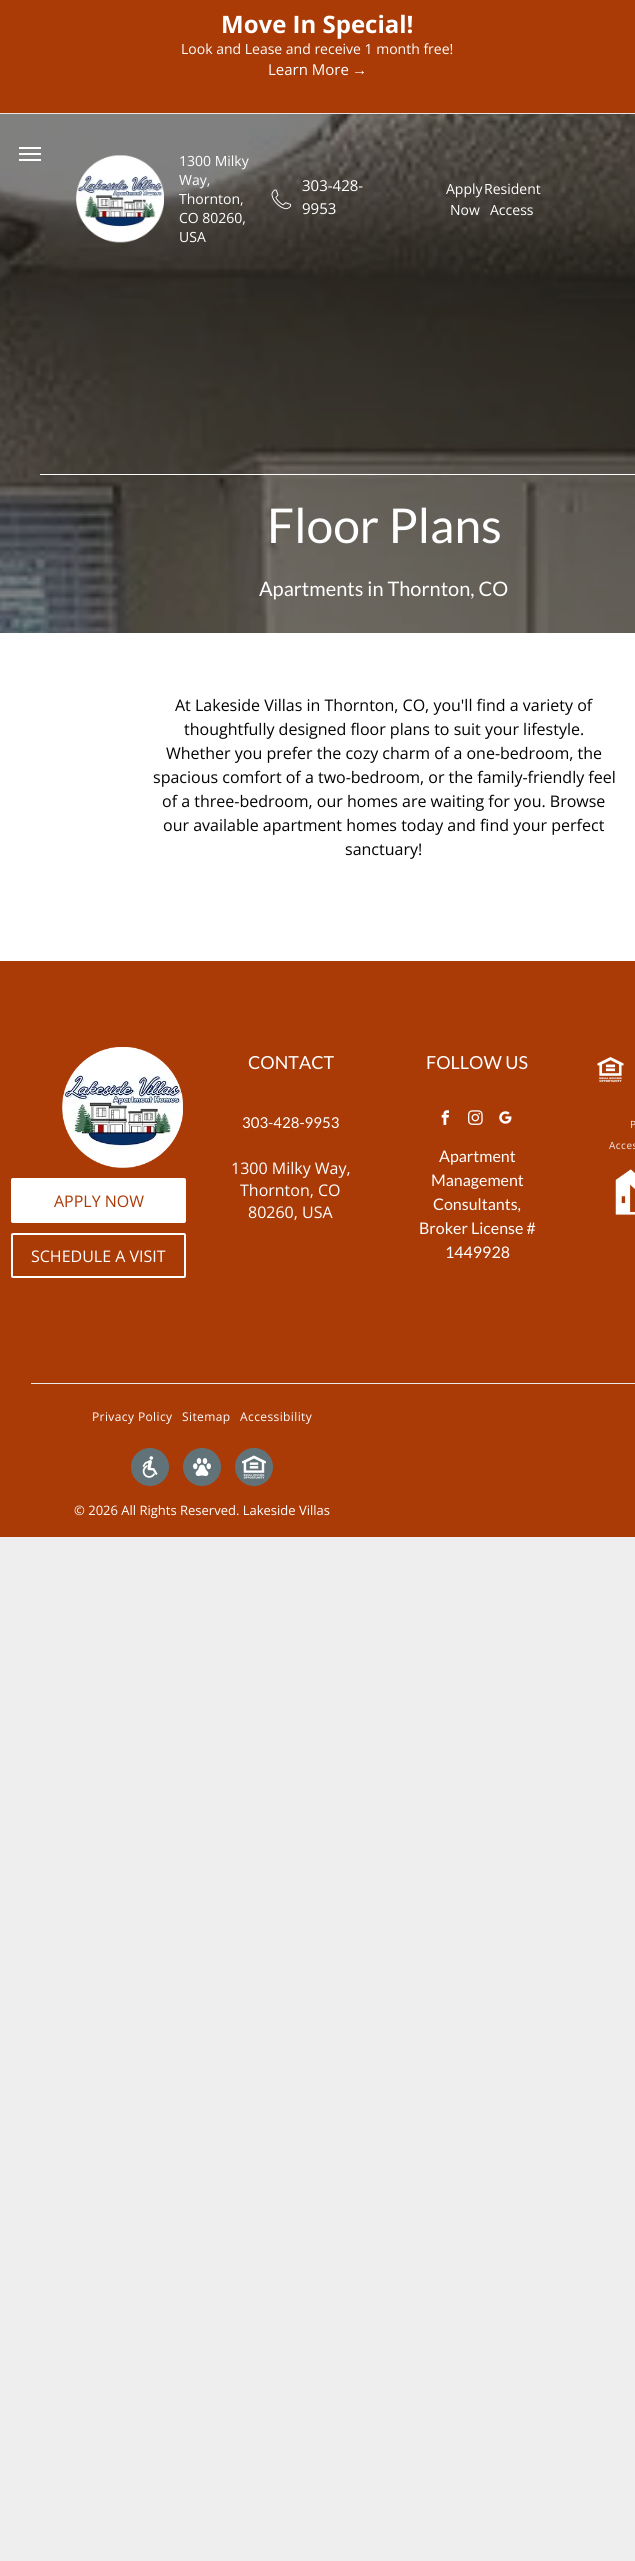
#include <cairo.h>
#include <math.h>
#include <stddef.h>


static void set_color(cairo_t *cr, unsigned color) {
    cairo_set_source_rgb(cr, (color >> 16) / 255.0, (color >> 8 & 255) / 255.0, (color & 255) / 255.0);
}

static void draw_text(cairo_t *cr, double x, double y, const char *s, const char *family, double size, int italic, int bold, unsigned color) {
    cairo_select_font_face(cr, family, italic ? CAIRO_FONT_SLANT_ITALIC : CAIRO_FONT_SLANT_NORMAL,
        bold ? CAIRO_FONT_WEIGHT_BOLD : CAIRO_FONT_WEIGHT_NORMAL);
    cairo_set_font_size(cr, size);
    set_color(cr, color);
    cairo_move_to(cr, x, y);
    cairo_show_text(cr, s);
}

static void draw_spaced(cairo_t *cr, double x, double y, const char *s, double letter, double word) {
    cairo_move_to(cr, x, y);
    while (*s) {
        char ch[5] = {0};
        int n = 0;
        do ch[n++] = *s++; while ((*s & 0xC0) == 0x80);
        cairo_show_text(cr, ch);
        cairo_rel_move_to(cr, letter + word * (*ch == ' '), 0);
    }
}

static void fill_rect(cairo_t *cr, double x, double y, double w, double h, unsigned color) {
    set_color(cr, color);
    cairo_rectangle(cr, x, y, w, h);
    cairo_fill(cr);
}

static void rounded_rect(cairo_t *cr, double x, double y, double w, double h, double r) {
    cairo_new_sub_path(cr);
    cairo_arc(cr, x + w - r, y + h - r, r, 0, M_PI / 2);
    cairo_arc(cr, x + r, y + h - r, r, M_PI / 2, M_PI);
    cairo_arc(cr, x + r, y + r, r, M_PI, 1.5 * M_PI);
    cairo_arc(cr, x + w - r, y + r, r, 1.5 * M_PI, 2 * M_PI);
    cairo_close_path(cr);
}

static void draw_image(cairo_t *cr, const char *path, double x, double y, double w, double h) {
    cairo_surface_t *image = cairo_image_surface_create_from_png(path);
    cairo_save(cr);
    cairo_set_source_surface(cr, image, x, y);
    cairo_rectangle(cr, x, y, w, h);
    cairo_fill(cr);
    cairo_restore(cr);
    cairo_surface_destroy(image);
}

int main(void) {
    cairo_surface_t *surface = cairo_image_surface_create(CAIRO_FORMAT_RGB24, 635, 2561);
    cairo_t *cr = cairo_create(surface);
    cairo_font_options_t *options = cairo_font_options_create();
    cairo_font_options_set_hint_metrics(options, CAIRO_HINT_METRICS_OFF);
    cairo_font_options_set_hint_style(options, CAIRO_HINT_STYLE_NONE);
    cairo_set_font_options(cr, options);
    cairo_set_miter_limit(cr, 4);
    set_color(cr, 0xEEEEEE);
    cairo_paint(cr);
    fill_rect(cr, 0, 633, 635, 328, 0xFFFFFF);
    draw_image(cr, "assets/img13.png", 0, 114, 635, 519);
    fill_rect(cr, 19, 147, 22, 2, 0xFFFFFF);
    fill_rect(cr, 19, 153, 22, 2, 0xFFFFFF);
    fill_rect(cr, 19, 159, 22, 2, 0xFFFFFF);
    fill_rect(cr, 0, 961, 635, 576, 0xAA3A06);
    fill_rect(cr, 0, 0, 635, 113, 0xAA3A06);
    fill_rect(cr, 0, 113, 635, 1, 0xEAE4E4);
    draw_text(cr, 221, 33, "Move In Special!", "Open Sans", 24, 0, 1, 0xFFFFFF);
    draw_text(cr, 181, 54, "Look and Lease and receive 1 month free!", "Open Sans", 14, 0, 0, 0xFFFFFF);
    draw_text(cr, 268, 75, "Learn More", "Open Sans", 15, 0, 0, 0xFFFFFF);
    draw_text(cr, 352, 75, "→", "Liberation Serif", 15, 0, 0, 0xFFFFFF);
    draw_image(cr, "assets/img1.png", 62, 1047, 121, 121);
    rounded_rect(cr, 11.5, 1178.5, 174, 44, 1.5);
    cairo_fill_preserve(cr);
    cairo_set_line_width(cr, 1);
    cairo_stroke(cr);
    draw_text(cr, 54, 1207, "APPLY NOW", "Open Sans", 16, 0, 0, 0xAA3A06);
    rounded_rect(cr, 12, 1234, 173, 43, 1);
    set_color(cr, 0xFFFFFF);
    cairo_set_line_width(cr, 2);
    cairo_stroke(cr);
    draw_text(cr, 31, 1262, "SCHEDULE A VISIT", "Open Sans", 16, 0, 0, 0xFFFFFF);
    draw_text(cr, 248, 1069, "CONTACT", "Lato", 18, 0, 0, 0xFFFFFF);
    draw_text(cr, 242, 1128, "303-428-9953", "Lato", 15, 0, 0, 0xFFFFFF);
    draw_text(cr, 231, 1174, "1300 Milky Way,", "Open Sans", 16, 0, 0, 0xFFFFFF);
    draw_text(cr, 240, 1196, "Thornton, CO", "Open Sans", 16, 0, 0, 0xFFFFFF);
    draw_text(cr, 248, 1218, "80260, USA", "Open Sans", 16, 0, 0, 0xFFFFFF);
    draw_text(cr, 426, 1069, "FOLLOW US", "Lato", 18, 0, 0, 0xFFFFFF);
    draw_image(cr, "assets/img2.png", 441, 1110, 8, 15);
    draw_image(cr, "assets/img3.png", 468, 1110, 15, 15);
    draw_image(cr, "assets/img4.png", 499, 1111, 13, 13);
    draw_text(cr, 439, 1162, "Apartment", "Lato", 16, 0, 0, 0xFFFFFF);
    draw_text(cr, 431, 1186, "Management", "Lato", 16, 0, 0, 0xFFFFFF);
    draw_text(cr, 433, 1210, "Consultants,", "Lato", 16, 0, 0, 0xFFFFFF);
    draw_text(cr, 419, 1234, "Broker License #", "Lato", 16, 0, 0, 0xFFFFFF);
    draw_text(cr, 445, 1258, "1449928", "Lato", 16, 0, 0, 0xFFFFFF);
    draw_image(cr, "assets/img5.png", 597, 1057, 27, 25);
    cairo_select_font_face(cr, "Open Sans", CAIRO_FONT_SLANT_NORMAL, CAIRO_FONT_WEIGHT_NORMAL);
    cairo_set_font_size(cr, 10);
    set_color(cr, 0xF0F0F0);
    draw_spaced(cr, 630, 1128, "P", 0.5, 0);
    draw_spaced(cr, 609, 1149, "Acces", 0.5, 0);
    draw_image(cr, "assets/img6.png", 615, 1169, 20, 46);
    fill_rect(cr, 31, 1383, 604, 1, 0xE9E9E9);
    cairo_set_font_size(cr, 12);
    set_color(cr, 0xFFFFFF);
    draw_spaced(cr, 92, 1421, "Privacy Policy", 0.4, 0);
    draw_spaced(cr, 182, 1421, "Sitemap", 0.4, 0);
    draw_spaced(cr, 240, 1421, "Accessibility", 0.4, 0);
    set_color(cr, 0x617379);
    cairo_new_path(cr);
    cairo_arc(cr, 150, 1467, 19, 0, 2 * M_PI);
    cairo_fill(cr);
    draw_image(cr, "assets/img7.png", 142, 1456, 16, 22);
    cairo_arc(cr, 202, 1467, 19, 0, 2 * M_PI);
    cairo_fill(cr);
    draw_image(cr, "assets/img8.png", 193, 1458, 18, 18);
    cairo_arc(cr, 254, 1467, 19, 0, 2 * M_PI);
    cairo_fill(cr);
    draw_image(cr, "assets/img9.png", 242, 1455, 24, 24);
    draw_text(cr, 74, 1515, "© 2026 All Rights Reserved. Lakeside Villas", "Open Sans", 13, 0, 0, 0xFFFFFF);
    draw_image(cr, "assets/img10.png", 76, 155, 88, 88);
    draw_image(cr, "assets/img11.png", 141, 188, 18, 22);
    draw_text(cr, 179, 166, "1300 Milky", "Open Sans", 14, 0, 0, 0xFFFFFF);
    draw_text(cr, 179, 185, "Way,", "Open Sans", 14, 0, 0, 0xFFFFFF);
    draw_text(cr, 179, 204, "Thornton,", "Open Sans", 14, 0, 0, 0xFFFFFF);
    draw_text(cr, 179, 223, "CO 80260,", "Open Sans", 14, 0, 0, 0xFFFFFF);
    draw_text(cr, 179, 242, "USA", "Open Sans", 14, 0, 0, 0xFFFFFF);
    draw_image(cr, "assets/img12.png", 271, 189, 21, 21);
    draw_text(cr, 302, 191, "303-428-", "Open Sans", 15, 0, 0, 0xFFFFFF);
    draw_text(cr, 302, 214, "9953", "Open Sans", 15, 0, 0, 0xFFFFFF);
    draw_text(cr, 446, 194, "Apply", "Open Sans", 14, 0, 0, 0xFFFFFF);
    draw_text(cr, 450, 215, "Now", "Open Sans", 14, 0, 0, 0xFFFFFF);
    draw_text(cr, 484, 194, "Resident", "Open Sans", 14, 0, 0, 0xFFFFFF);
    draw_text(cr, 490, 215, "Access", "Open Sans", 14, 0, 0, 0xFFFFFF);
    fill_rect(cr, 40, 474, 595, 1, 0xFFFFFF);
    draw_text(cr, 267, 543, "Floor Plans", "Lato", 48, 0, 0, 0xFFFFFF);
    draw_text(cr, 259, 596, "Apartments in Thornton, CO", "Lato", 20, 0, 0, 0xFFFFFF);
    draw_text(cr, 175, 711, "At Lakeside Villas in Thornton, CO, you'll find a variety of", "Open Sans", 16, 0, 0, 0x020202);
    draw_text(cr, 184, 735, "thoughtfully designed floor plans to suit your lifestyle.", "Open Sans", 16, 0, 0, 0x020202);
    draw_text(cr, 166, 759, "Whether you prefer the cozy charm of a one-bedroom, the", "Open Sans", 16, 0, 0, 0x020202);
    draw_text(cr, 153, 783, "spacious comfort of a two-bedroom, or the family-friendly feel", "Open Sans", 16, 0, 0, 0x020202);
    draw_text(cr, 162, 807, "of a three-bedroom, our homes are waiting for you. Browse", "Open Sans", 16, 0, 0, 0x020202);
    draw_text(cr, 163, 831, "our available apartment homes today and find your perfect", "Open Sans", 16, 0, 0, 0x020202);
    draw_text(cr, 345, 855, "sanctuary!", "Open Sans", 16, 0, 0, 0x020202);
    cairo_surface_write_to_png(surface, "output.png");
    cairo_font_options_destroy(options);
    cairo_destroy(cr);
    cairo_surface_destroy(surface);
    return 0;
}
